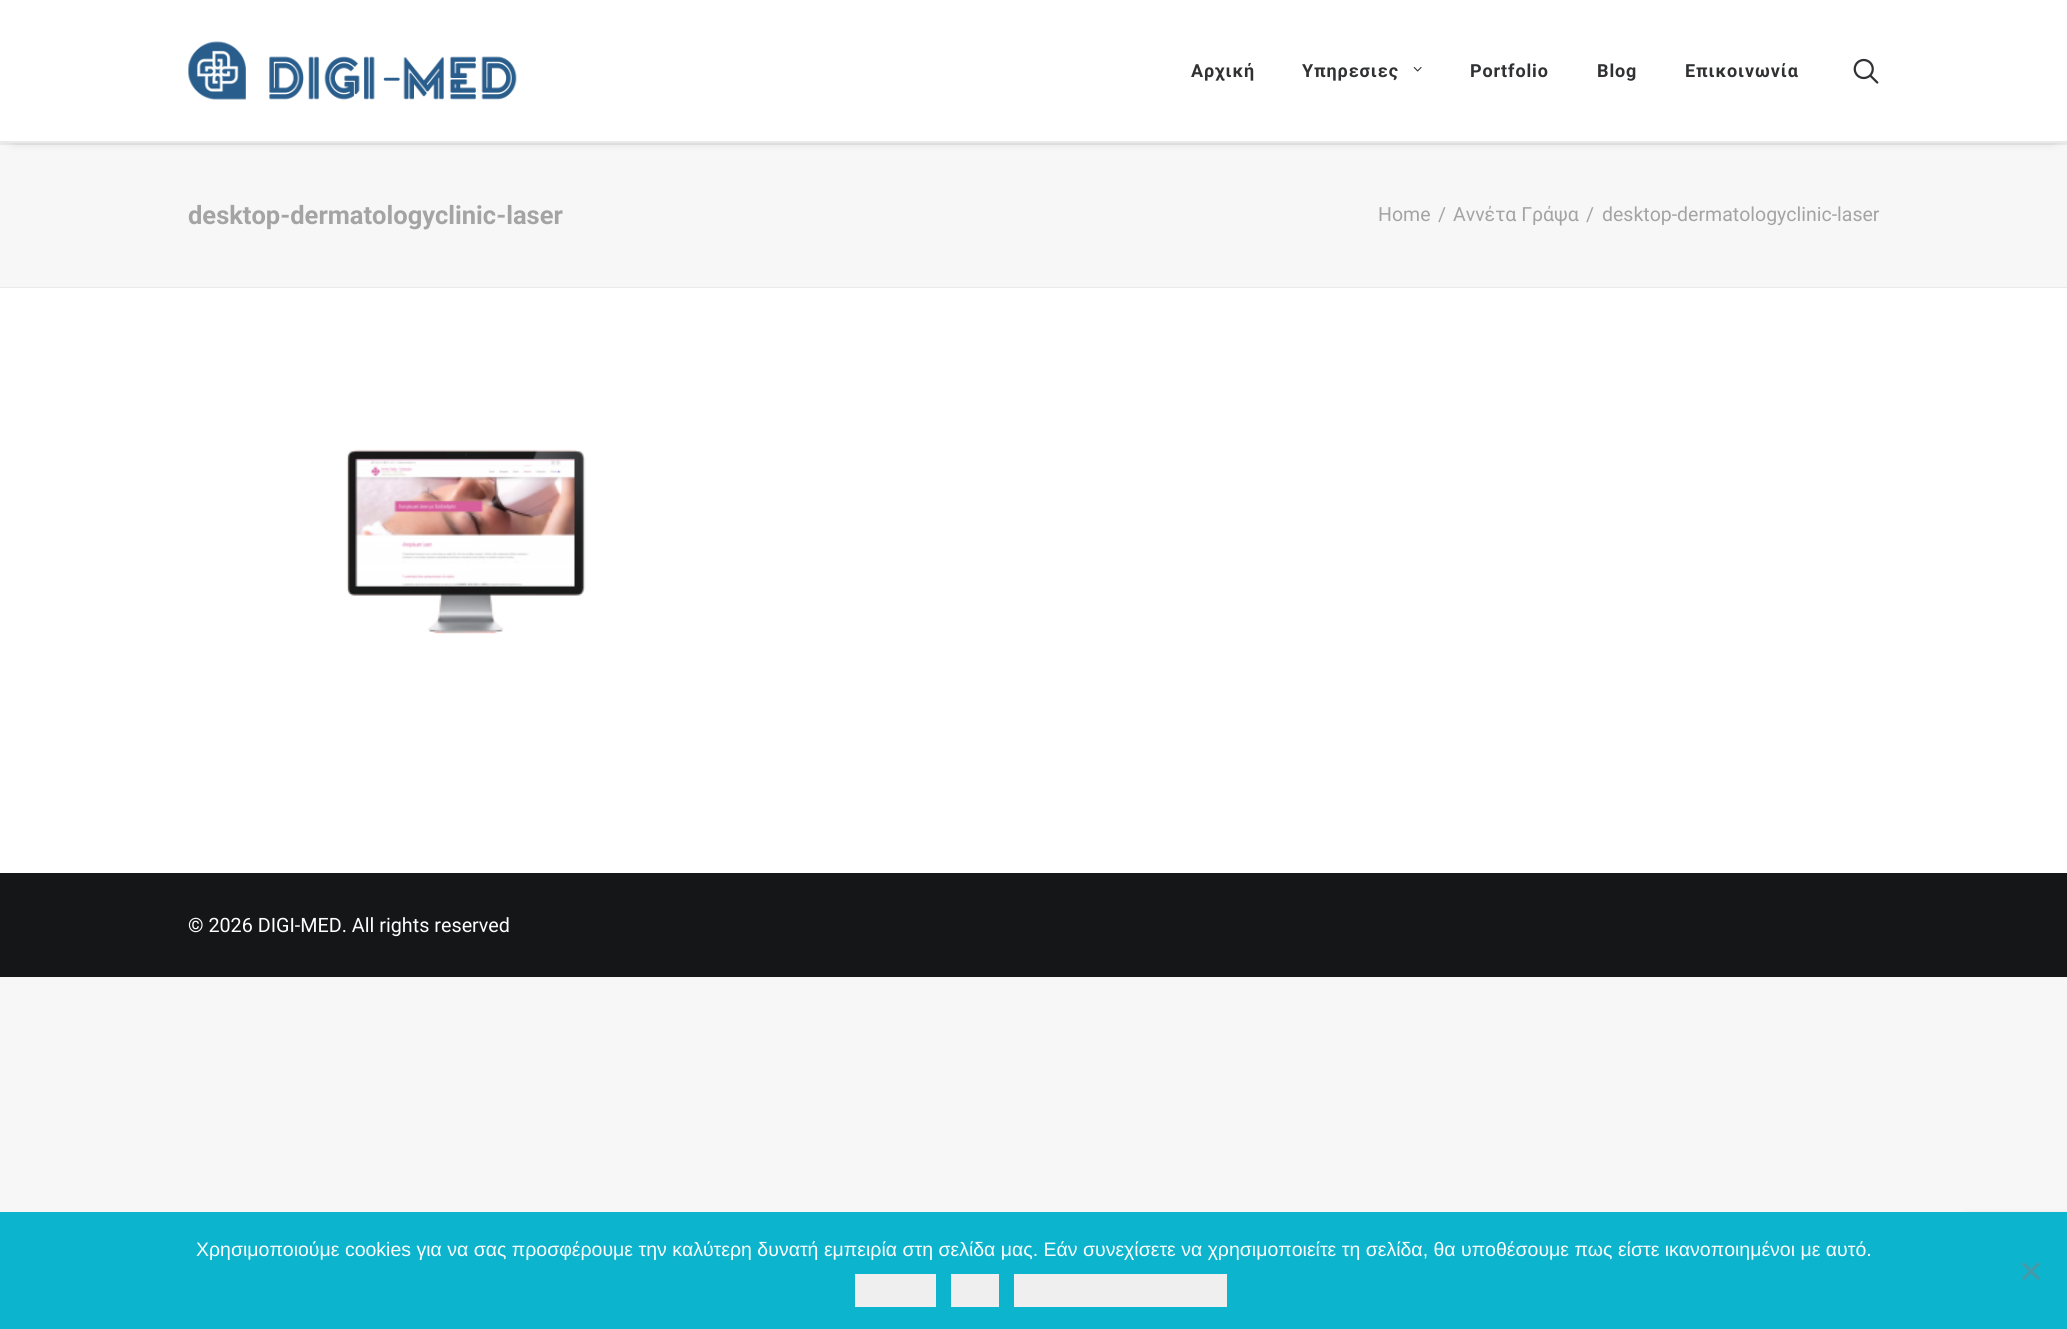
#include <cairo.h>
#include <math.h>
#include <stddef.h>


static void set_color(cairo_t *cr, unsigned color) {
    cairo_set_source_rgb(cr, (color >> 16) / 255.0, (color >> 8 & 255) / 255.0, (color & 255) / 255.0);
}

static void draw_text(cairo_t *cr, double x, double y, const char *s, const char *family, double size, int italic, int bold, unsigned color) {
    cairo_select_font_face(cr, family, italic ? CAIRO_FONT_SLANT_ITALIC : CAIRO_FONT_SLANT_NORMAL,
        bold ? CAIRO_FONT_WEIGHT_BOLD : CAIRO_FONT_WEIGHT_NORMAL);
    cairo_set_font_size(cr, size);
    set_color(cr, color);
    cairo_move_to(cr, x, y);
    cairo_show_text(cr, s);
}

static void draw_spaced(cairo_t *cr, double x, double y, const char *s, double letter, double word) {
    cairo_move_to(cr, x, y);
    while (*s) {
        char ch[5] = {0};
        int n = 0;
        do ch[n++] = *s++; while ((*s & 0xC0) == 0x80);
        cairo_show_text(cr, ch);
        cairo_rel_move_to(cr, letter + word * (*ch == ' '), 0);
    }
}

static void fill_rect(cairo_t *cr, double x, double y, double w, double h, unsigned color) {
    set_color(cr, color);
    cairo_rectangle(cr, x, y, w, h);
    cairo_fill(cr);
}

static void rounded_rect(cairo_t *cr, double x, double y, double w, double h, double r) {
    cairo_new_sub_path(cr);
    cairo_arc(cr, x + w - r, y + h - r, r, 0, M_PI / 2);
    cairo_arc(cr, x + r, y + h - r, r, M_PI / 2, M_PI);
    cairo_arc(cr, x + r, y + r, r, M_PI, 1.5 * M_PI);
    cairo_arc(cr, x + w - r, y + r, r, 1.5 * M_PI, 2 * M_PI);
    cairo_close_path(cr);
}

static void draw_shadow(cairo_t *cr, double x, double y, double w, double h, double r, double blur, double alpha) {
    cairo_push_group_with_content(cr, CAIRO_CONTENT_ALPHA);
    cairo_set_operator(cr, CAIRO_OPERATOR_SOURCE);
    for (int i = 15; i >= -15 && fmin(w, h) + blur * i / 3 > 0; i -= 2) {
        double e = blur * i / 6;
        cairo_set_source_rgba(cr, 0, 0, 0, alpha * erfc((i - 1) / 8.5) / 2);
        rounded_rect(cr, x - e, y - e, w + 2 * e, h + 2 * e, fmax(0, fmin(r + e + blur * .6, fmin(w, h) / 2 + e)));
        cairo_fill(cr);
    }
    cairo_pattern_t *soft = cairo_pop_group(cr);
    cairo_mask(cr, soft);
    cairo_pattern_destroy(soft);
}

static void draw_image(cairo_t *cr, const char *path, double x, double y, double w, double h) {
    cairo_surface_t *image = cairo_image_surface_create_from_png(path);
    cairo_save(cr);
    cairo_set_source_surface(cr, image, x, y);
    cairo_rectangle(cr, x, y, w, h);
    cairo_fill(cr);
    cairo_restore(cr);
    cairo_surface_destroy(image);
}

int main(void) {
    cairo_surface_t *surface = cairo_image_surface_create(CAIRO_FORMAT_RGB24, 2067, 1329);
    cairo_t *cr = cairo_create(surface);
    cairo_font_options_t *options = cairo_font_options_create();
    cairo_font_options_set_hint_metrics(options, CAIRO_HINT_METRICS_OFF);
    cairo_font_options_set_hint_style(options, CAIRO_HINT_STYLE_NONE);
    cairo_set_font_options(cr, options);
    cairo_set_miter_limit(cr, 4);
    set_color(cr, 0xF7F7F7);
    cairo_paint(cr);
    fill_rect(cr, 0, 143, 2067, 2, 0xEAEAEA);
    set_color(cr, 0x000000);
    draw_shadow(cr, 14, 21, 2040, 113, 0, 7.5, 0.6);
    fill_rect(cr, 0, 0, 2067, 141, 0xFFFFFF);
    fill_rect(cr, 0, 141, 2067, 2, 0xEAEAEA);
    draw_image(cr, "assets/img1.png", 188, 41, 329, 59);
    cairo_select_font_face(cr, "Roboto", CAIRO_FONT_SLANT_NORMAL, CAIRO_FONT_WEIGHT_BOLD);
    cairo_set_font_size(cr, 18);
    set_color(cr, 0x303133);
    draw_spaced(cr, 1191, 77, "Αρχική", 0.9, 0);
    draw_spaced(cr, 1302, 77, "Υπηρεσιες", 0.9, 0);
    draw_image(cr, "assets/img2.png", 1413, 66, 9, 6);
    draw_spaced(cr, 1470, 77, "Portfolio", 0.9, 0);
    draw_spaced(cr, 1597, 77, "Blog", 0.9, 0);
    draw_spaced(cr, 1685, 77, "Επικοινωνία", 0.9, 0);
    draw_image(cr, "assets/img3.png", 1853, 58, 26, 26);
    fill_rect(cr, 0, 287, 2067, 1, 0xEAEAEA);
    draw_text(cr, 188, 224, "desktop-dermatologyclinic-laser", "Roboto", 25.5, 0, 1, 0xA4A4A4);
    draw_text(cr, 1378, 221, "Home", "Roboto", 19.5, 0, 0, 0xA4A4A4);
    draw_text(cr, 1438, 221, "/", "Roboto", 19.5, 0, 0, 0xA4A4A4);
    draw_text(cr, 1453, 221, "Αννέτα Γράψα", "Roboto", 19.5, 0, 0, 0xA4A4A4);
    draw_text(cr, 1586, 221, "/", "Roboto", 19.5, 0, 0, 0xA4A4A4);
    draw_text(cr, 1602, 221, "desktop-dermatologyclinic-laser", "Roboto", 19.5, 0, 0, 0xA4A4A4);
    fill_rect(cr, 0, 288, 2067, 585, 0xFFFFFF);
    draw_image(cr, "assets/img4.png", 346, 449, 240, 185);
    fill_rect(cr, 0, 873, 2067, 104, 0x141618);
    draw_text(cr, 188, 932, "© 2026 DIGI-MED. All rights reserved", "Roboto", 19.75, 0, 0, 0xFFFFFF);
    set_color(cr, 0x808080);
    draw_shadow(cr, 1962, 1218, 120, 90, 3, 4, 1);
    fill_rect(cr, 0, 1212, 2067, 117, 0x0CB4CE);
    draw_text(cr, 196, 1256, "Χρησιμοποιούμε cookies για να σας προσφέρουμε την καλύτερη δυνατή εμπειρία στη σελίδα μας. Εάν συνεχίσετε να χρησιμοποιείτε τη σελίδα, θα υποθέσουμε πως είστε ικανοποιημένοι με αυτό.", "Liberation Sans", 19.5, 0, 0, 0xFFFFFF);
    set_color(cr, 0x469AA7);
    cairo_new_path(cr);
    cairo_move_to(cr, 2038, 1262);
    cairo_line_to(cr, 2040, 1264.5);
    cairo_line_to(cr, 2024, 1280.5);
    cairo_line_to(cr, 2022, 1278);
    cairo_close_path(cr);
    cairo_fill(cr);
    cairo_new_path(cr);
    cairo_move_to(cr, 2022, 1264.5);
    cairo_line_to(cr, 2024, 1262);
    cairo_line_to(cr, 2040, 1278);
    cairo_line_to(cr, 2038, 1280.5);
    cairo_close_path(cr);
    cairo_fill(cr);
    fill_rect(cr, 855, 1274, 81, 33, 0xEFEFEF);
    fill_rect(cr, 951, 1274, 48, 33, 0xEFEFEF);
    fill_rect(cr, 1014, 1274, 213, 33, 0xEFEFEF);
    cairo_surface_write_to_png(surface, "output.png");
    cairo_font_options_destroy(options);
    cairo_destroy(cr);
    cairo_surface_destroy(surface);
    return 0;
}
